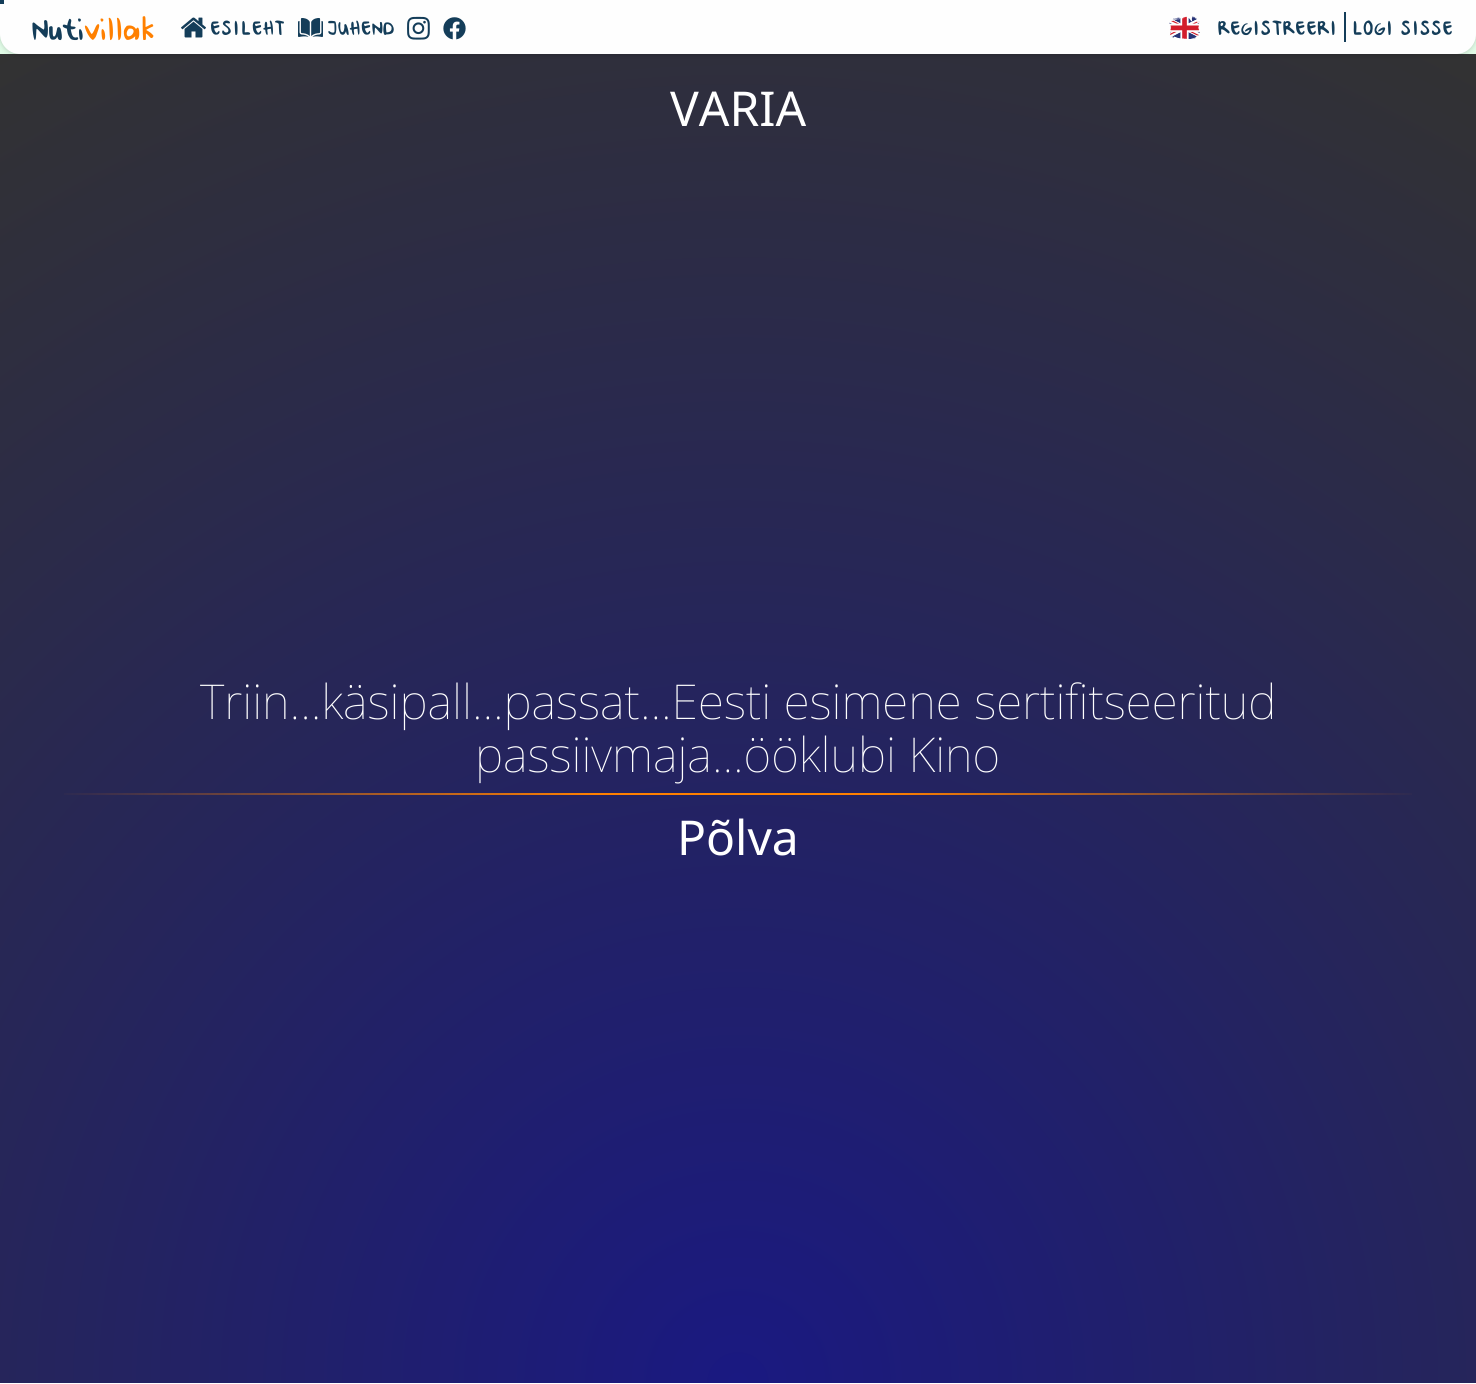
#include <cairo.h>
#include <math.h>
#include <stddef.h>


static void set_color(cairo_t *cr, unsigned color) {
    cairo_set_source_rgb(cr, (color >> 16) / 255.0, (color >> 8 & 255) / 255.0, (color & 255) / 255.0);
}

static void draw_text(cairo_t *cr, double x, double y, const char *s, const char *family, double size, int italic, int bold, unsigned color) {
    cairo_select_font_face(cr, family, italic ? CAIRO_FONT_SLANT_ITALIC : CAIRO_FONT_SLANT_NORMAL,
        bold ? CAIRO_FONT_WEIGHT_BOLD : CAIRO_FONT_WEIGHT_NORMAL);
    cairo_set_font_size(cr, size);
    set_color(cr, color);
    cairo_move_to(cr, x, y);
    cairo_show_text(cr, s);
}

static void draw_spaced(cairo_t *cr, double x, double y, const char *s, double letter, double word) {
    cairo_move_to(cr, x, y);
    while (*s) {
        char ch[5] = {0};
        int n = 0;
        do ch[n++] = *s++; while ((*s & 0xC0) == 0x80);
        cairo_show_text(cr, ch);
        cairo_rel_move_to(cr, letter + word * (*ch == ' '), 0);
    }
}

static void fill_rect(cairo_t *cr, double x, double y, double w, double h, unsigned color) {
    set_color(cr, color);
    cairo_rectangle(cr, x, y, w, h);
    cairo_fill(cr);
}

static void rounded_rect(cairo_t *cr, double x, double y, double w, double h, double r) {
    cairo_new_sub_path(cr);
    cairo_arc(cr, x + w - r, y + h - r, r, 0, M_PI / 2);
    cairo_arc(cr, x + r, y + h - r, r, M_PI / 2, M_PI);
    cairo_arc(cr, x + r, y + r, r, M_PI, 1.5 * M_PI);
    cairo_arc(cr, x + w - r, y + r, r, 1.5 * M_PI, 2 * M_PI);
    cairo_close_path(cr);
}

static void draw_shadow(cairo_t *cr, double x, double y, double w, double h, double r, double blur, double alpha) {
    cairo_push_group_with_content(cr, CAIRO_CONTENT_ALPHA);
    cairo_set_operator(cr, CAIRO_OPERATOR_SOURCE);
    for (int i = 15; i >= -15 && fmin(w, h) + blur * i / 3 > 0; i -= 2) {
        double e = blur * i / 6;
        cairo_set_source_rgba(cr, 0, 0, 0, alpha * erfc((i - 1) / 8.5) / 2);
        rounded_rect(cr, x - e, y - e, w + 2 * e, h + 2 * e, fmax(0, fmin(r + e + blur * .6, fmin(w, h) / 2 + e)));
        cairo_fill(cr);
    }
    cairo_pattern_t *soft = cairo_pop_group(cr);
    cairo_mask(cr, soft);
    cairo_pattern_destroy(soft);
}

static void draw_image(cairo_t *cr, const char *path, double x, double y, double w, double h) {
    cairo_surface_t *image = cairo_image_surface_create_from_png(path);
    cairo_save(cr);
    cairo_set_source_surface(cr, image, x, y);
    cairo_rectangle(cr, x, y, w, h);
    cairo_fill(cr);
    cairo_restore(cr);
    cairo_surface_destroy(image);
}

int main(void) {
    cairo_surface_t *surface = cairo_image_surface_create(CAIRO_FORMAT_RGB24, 1476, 1384);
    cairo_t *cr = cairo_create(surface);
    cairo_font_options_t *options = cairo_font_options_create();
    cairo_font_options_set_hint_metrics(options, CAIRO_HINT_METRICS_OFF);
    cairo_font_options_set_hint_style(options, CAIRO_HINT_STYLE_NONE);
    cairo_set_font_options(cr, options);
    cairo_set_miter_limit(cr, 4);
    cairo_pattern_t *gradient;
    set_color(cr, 0xFFFFFF);
    cairo_paint(cr);
    draw_image(cr, "assets/img1.png", 0, 34, 1476, 20);
    gradient = cairo_pattern_create_radial(738, 1383, 0, 738, 1383, 1520);
    cairo_pattern_add_color_stop_rgba(gradient, 0, 0.102, 0.098, 0.506, 1);
    cairo_pattern_add_color_stop_rgba(gradient, 1, 0.196, 0.196, 0.196, 1);
    cairo_set_source(cr, gradient);
    cairo_pattern_destroy(gradient);
    cairo_rectangle(cr, 0, 54, 1476, 1329);
    cairo_fill(cr);
    set_color(cr, 0x000000);
    draw_shadow(cr, 0, 1, 1476, 54, 20, 2.5, 0.2);
    set_color(cr, 0xFEFEFE);
    cairo_new_path(cr);
    cairo_move_to(cr, 0, 0);
    cairo_line_to(cr, 1476, 0);
    cairo_line_to(cr, 1476, 34);
    cairo_curve_to(cr, 1476, 45, 1467, 54, 1456, 54);
    cairo_line_to(cr, 20, 54);
    cairo_curve_to(cr, 9, 54, 0, 45, 0, 34);
    cairo_close_path(cr);
    cairo_fill(cr);
    fill_rect(cr, 0, 0, 4, 4, 0x143D59);
    draw_text(cr, 32, 40, "Nuti", "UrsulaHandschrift", 32, 0, 0, 0x143D59);
    draw_text(cr, 84, 40, "villak", "UrsulaHandschrift", 32, 0, 0, 0xFF8000);
    draw_image(cr, "assets/img2.png", 181, 17, 25, 21);
    cairo_set_font_size(cr, 21);
    set_color(cr, 0x143D59);
    draw_spaced(cr, 210, 35, "ESILEHT", 0.75, 0);
    draw_image(cr, "assets/img3.png", 298, 18, 25, 19);
    draw_spaced(cr, 327, 35, "JUHEND", 0.75, 0);
    draw_image(cr, "assets/img4.png", 407, 16, 23, 24);
    draw_image(cr, "assets/img5.png", 443, 17, 23, 23);
    draw_image(cr, "assets/img6.png", 1169, 16, 31, 23);
    draw_spaced(cr, 1218, 35, "REGISTREERI", 0.75, 0);
    fill_rect(cr, 1344, 12, 2, 30, 0x143D59);
    draw_spaced(cr, 1352, 35, "LOGI SISSE", 0.75, 0);
    draw_text(cr, 670, 126, "VARIA", "Noto Sans", 48, 0, 0, 0xFFFFFF);
    draw_text(cr, 200, 719, "Triin...käsipall...passat...Eesti esimene sertifitseeritud", "Noto Sans Thin", 48, 0, 0, 0xFFFFFF);
    draw_text(cr, 475, 772, "passiivmaja...ööklubi Kino", "Noto Sans Thin", 48, 0, 0, 0xFFFFFF);
    gradient = cairo_pattern_create_linear(24, 794, 1452, 794);
    cairo_pattern_add_color_stop_rgba(gradient, 0.02, 1, 0.502, 0, 0);
    cairo_pattern_add_color_stop_rgba(gradient, 0.4, 1, 0.502, 0, 1);
    cairo_pattern_add_color_stop_rgba(gradient, 0.6, 1, 0.502, 0, 1);
    cairo_pattern_add_color_stop_rgba(gradient, 0.98, 1, 0.502, 0, 0);
    cairo_set_source(cr, gradient);
    cairo_pattern_destroy(gradient);
    cairo_rectangle(cr, 64, 793, 1348, 2);
    cairo_fill(cr);
    draw_text(cr, 677, 855, "Põlva", "Noto Sans", 48, 0, 0, 0xFFFFFF);
    cairo_surface_write_to_png(surface, "output.png");
    cairo_font_options_destroy(options);
    cairo_destroy(cr);
    cairo_surface_destroy(surface);
    return 0;
}
